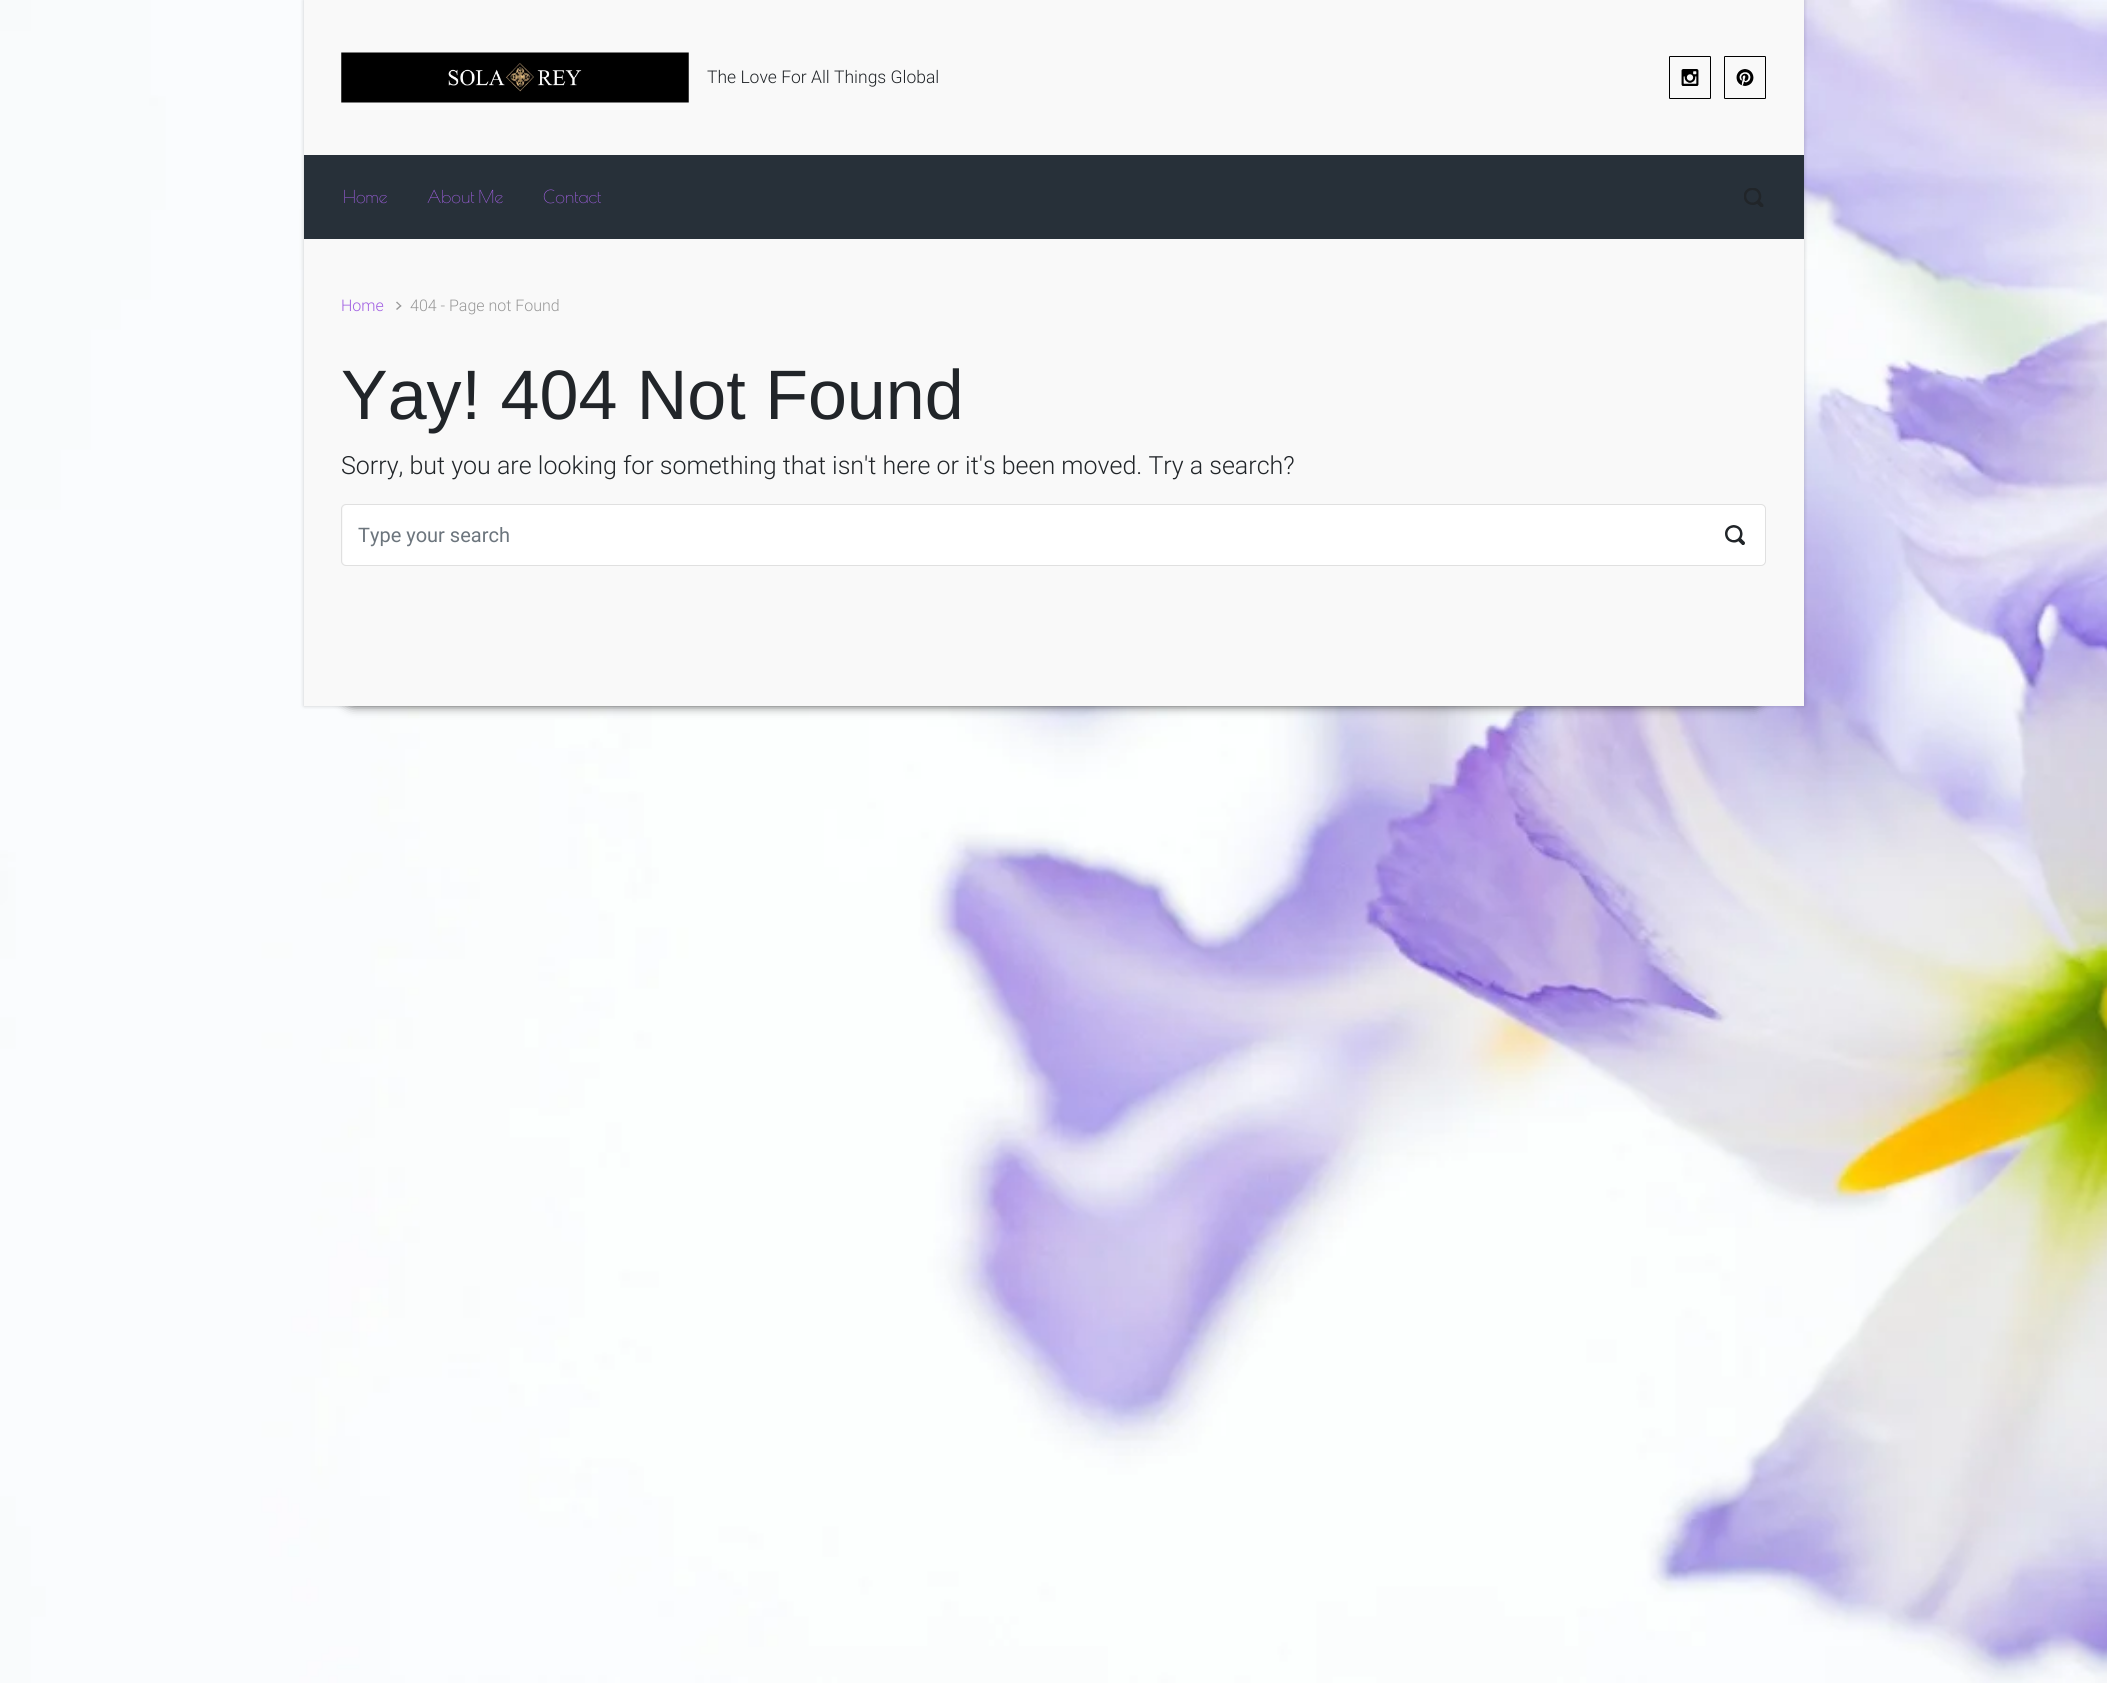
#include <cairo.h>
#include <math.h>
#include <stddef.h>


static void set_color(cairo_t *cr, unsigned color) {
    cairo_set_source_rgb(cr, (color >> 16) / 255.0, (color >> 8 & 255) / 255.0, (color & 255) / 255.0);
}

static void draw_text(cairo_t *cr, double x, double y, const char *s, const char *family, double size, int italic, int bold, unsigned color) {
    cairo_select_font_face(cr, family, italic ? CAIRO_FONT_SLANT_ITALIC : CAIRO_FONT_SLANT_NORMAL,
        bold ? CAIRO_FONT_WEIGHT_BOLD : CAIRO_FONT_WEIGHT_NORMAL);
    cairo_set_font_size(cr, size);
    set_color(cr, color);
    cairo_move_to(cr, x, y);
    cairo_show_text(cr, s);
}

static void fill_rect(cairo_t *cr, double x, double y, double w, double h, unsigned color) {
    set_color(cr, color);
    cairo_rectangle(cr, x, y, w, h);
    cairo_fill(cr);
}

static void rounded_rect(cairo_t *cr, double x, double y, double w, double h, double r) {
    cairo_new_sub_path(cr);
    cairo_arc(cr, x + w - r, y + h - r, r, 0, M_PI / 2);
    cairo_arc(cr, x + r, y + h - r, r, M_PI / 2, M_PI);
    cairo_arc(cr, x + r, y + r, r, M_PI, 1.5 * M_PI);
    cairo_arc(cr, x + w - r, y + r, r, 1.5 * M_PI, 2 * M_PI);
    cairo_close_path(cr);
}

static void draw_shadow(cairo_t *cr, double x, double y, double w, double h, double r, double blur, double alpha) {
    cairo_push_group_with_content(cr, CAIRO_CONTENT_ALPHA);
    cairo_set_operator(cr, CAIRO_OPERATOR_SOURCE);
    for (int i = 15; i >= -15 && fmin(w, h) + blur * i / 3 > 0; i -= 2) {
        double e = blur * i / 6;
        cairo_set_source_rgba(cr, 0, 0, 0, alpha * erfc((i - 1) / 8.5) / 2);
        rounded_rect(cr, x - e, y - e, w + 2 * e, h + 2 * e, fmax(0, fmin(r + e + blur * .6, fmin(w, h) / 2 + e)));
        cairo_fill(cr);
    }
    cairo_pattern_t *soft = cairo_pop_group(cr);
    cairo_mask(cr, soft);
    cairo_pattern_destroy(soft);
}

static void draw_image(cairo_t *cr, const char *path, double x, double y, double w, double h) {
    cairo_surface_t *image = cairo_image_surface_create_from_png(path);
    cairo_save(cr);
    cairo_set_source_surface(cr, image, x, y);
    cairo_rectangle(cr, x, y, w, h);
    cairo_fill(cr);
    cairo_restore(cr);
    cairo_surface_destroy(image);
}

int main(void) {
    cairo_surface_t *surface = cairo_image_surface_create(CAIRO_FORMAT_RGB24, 2107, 1683);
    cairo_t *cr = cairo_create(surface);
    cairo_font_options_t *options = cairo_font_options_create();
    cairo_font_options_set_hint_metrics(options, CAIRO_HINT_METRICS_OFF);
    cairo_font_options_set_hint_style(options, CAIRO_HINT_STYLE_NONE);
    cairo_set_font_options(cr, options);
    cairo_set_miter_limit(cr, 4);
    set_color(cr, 0xFFFFFF);
    cairo_paint(cr);
    draw_image(cr, "assets/img1.png", 0, 0, 2107, 1683);
    set_color(cr, 0x000000);
    draw_shadow(cr, 304, 0, 1500, 706, 0, 2, 0.2);
    draw_shadow(cr, 341, 666, 1425, 40, 13, 5.5, 0.6);
    fill_rect(cr, 304, 0, 1500, 706, 0xF9F9F9);
    draw_image(cr, "assets/img2.png", 341, 52, 348, 51);
    draw_text(cr, 707, 83, "The Love For All Things Global", "Roboto Light", 17.5, 0, 0, 0x212529);
    rounded_rect(cr, 1669.5, 56.5, 41, 42, 0.5);
    set_color(cr, 0x000000);
    cairo_set_line_width(cr, 1);
    cairo_stroke(cr);
    draw_image(cr, "assets/img3.png", 1681, 69, 18, 17);
    rounded_rect(cr, 1724.5, 56.5, 41, 42, 0.5);
    cairo_stroke(cr);
    draw_image(cr, "assets/img4.png", 1736, 69, 18, 17);
    fill_rect(cr, 304, 155, 1500, 84, 0x273039);
    draw_text(cr, 343, 203, "Home", "Poiret One", 17.5, 0, 0, 0xA15FE2);
    draw_text(cr, 427, 203, "About Me", "Poiret One", 17.5, 0, 0, 0xA15FE2);
    draw_text(cr, 543, 203, "Contact", "Poiret One", 17.5, 0, 0, 0xA15FE2);
    draw_image(cr, "assets/img5.png", 1744, 188, 20, 19);
    draw_text(cr, 341, 311, "Home", "Roboto Light", 16, 0, 0, 0xA15FE2);
    set_color(cr, 0x999999);
    cairo_new_path(cr);
    cairo_move_to(cr, 396, 302.5);
    cairo_line_to(cr, 397, 301.5);
    cairo_line_to(cr, 401.5, 306);
    cairo_line_to(cr, 400.5, 306.5);
    cairo_close_path(cr);
    cairo_fill(cr);
    cairo_new_path(cr);
    cairo_move_to(cr, 396, 309);
    cairo_line_to(cr, 400.5, 305);
    cairo_line_to(cr, 401.5, 306);
    cairo_line_to(cr, 397, 310);
    cairo_close_path(cr);
    cairo_fill(cr);
    draw_text(cr, 410, 311, "404 - Page not Found", "Roboto Light", 16, 0, 0, 0x999999);
    draw_text(cr, 341, 419, "Yay! 404 Not Found", "Liberation Sans", 70, 0, 0, 0x212529);
    draw_text(cr, 341, 474, "Sorry, but you are looking for something that isn't here or it's been moved. Try a search?", "Roboto Light", 25, 0, 0, 0x212529);
    set_color(cr, 0xFFFFFF);
    rounded_rect(cr, 343, 505, 1422, 60, 4);
    cairo_fill(cr);
    rounded_rect(cr, 341.5, 504.5, 1424, 61, 4.5);
    set_color(cr, 0xE0E0E0);
    cairo_stroke(cr);
    draw_text(cr, 358, 542, "Type your search", "Roboto", 20, 0, 0, 0x6C757D);
    draw_image(cr, "assets/img6.png", 1725, 525, 20, 20);
    cairo_surface_write_to_png(surface, "output.png");
    cairo_font_options_destroy(options);
    cairo_destroy(cr);
    cairo_surface_destroy(surface);
    return 0;
}
